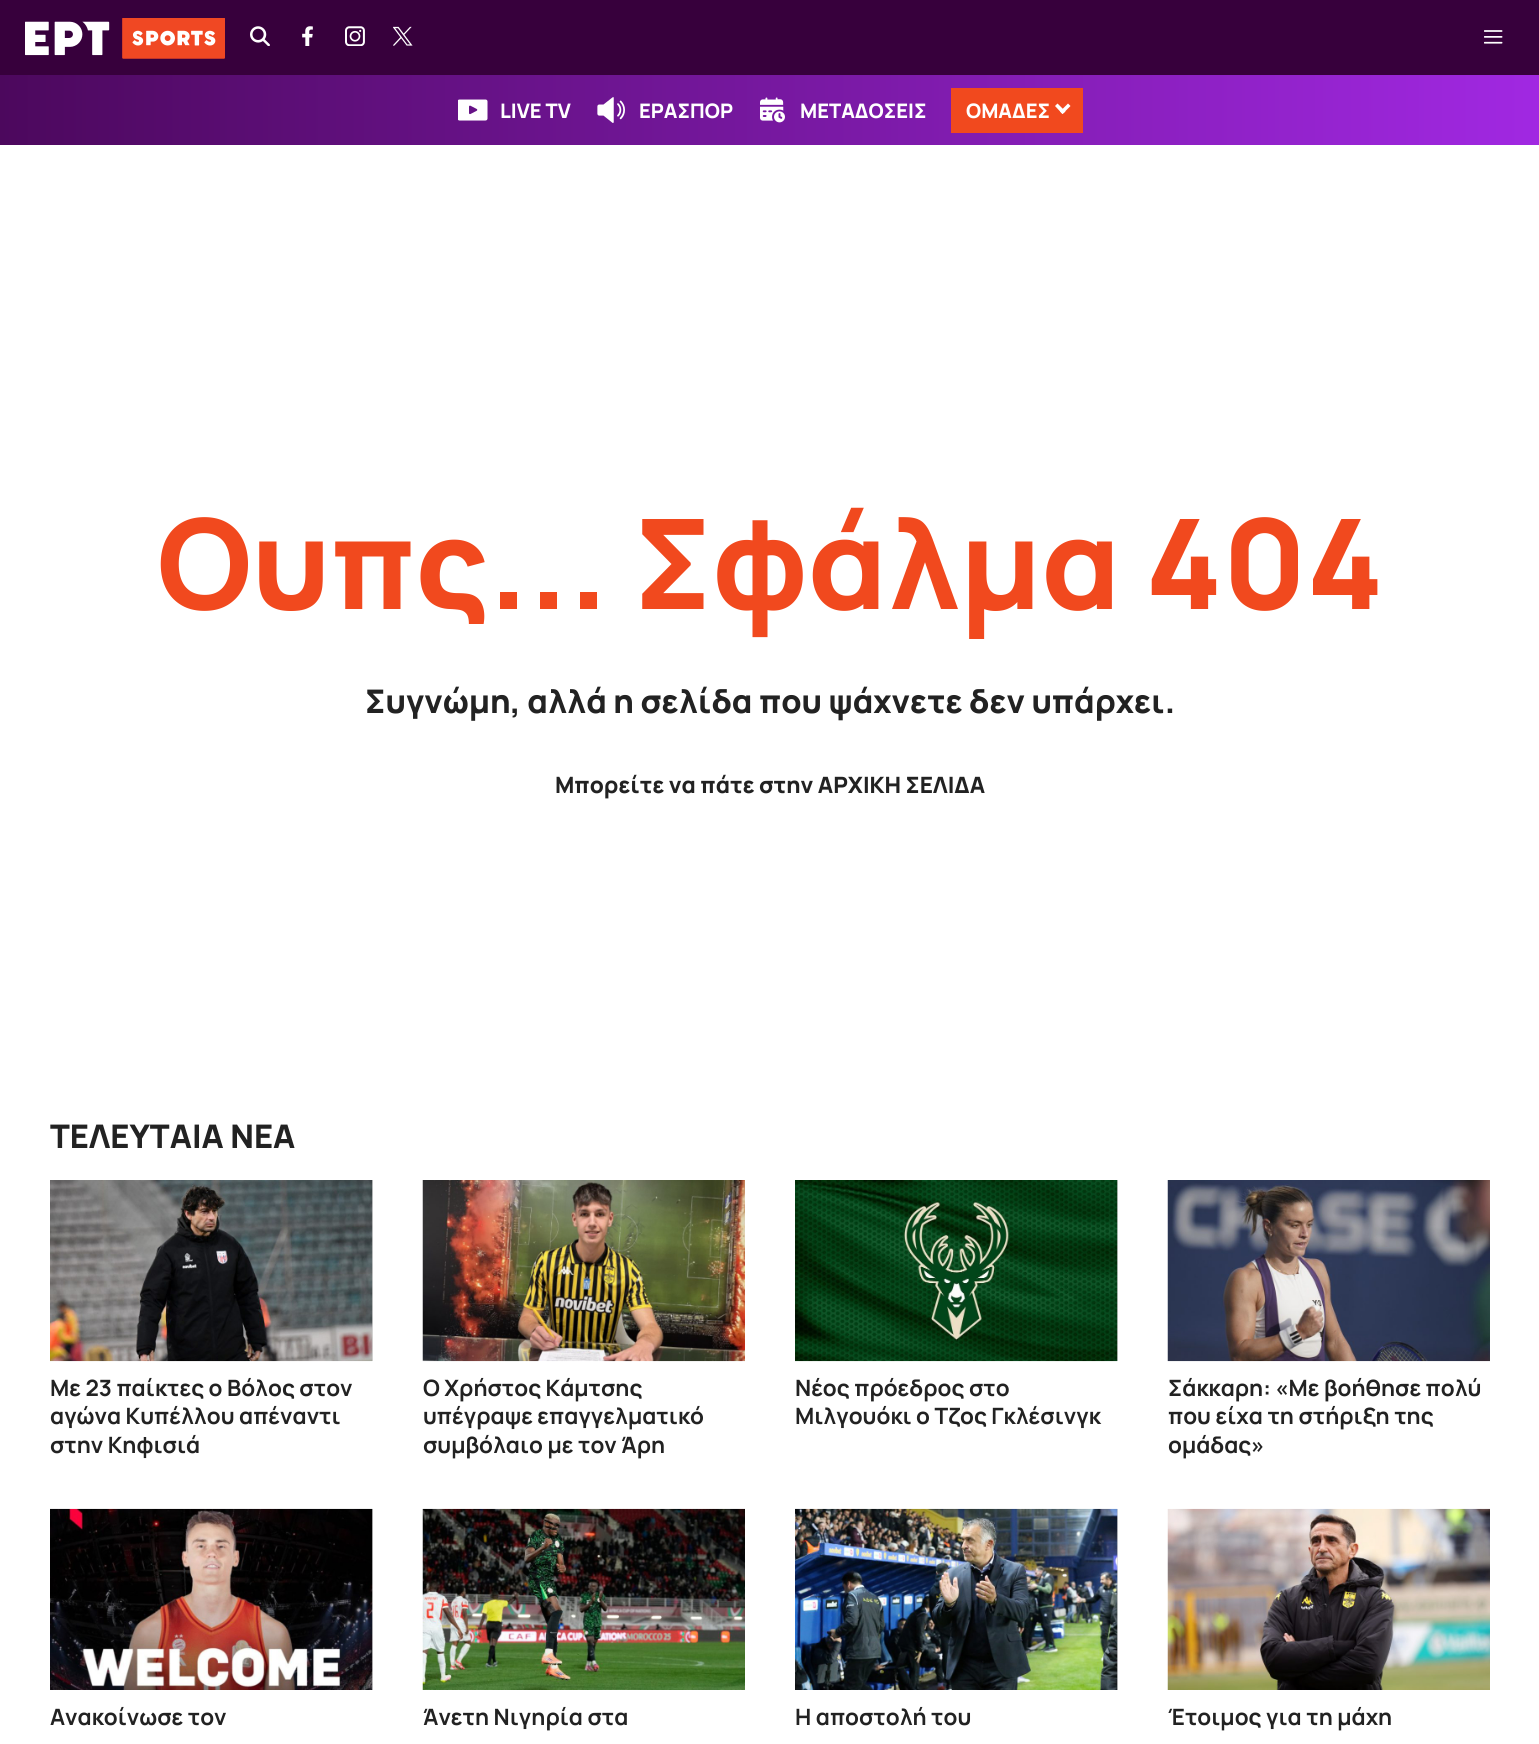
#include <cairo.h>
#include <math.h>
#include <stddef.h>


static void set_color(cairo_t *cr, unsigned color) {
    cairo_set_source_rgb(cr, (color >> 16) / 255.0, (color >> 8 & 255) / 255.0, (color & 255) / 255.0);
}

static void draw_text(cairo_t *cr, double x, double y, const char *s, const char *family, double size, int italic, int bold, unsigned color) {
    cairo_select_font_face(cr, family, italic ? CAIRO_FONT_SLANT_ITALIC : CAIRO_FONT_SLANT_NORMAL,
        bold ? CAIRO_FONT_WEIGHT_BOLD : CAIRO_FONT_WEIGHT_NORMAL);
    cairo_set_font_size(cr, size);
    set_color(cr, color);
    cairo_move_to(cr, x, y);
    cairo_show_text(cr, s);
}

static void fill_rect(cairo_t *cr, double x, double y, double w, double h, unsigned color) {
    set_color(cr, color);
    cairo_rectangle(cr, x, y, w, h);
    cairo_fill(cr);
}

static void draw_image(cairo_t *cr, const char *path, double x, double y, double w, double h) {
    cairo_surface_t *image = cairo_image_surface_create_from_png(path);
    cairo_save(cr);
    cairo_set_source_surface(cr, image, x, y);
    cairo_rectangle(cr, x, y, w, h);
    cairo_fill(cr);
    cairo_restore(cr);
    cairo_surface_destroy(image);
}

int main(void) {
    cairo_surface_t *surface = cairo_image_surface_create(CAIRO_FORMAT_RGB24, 1539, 1744);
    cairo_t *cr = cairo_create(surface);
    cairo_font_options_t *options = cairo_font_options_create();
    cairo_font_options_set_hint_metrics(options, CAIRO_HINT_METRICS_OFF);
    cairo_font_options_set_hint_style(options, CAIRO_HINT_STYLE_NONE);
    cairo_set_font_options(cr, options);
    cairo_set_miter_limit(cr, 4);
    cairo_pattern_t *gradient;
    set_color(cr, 0xFFFFFF);
    cairo_paint(cr);
    fill_rect(cr, 0, 0, 1539, 75, 0x37003C);
    draw_image(cr, "assets/img1.png", 25, 18, 200, 41);
    draw_image(cr, "assets/img2.png", 250, 26, 20, 20);
    draw_image(cr, "assets/img3.png", 302, 26, 11, 20);
    draw_image(cr, "assets/img4.png", 345, 26, 20, 20);
    draw_image(cr, "assets/img5.png", 393, 26, 20, 20);
    draw_image(cr, "assets/img6.png", 1484, 30, 19, 14);
    gradient = cairo_pattern_create_linear(0, 110, 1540, 110);
    cairo_pattern_add_color_stop_rgba(gradient, 0, 0.298, 0.031, 0.365, 1);
    cairo_pattern_add_color_stop_rgba(gradient, 1, 0.631, 0.157, 0.886, 1);
    cairo_set_source(cr, gradient);
    cairo_pattern_destroy(gradient);
    cairo_rectangle(cr, 0, 75, 1539, 70);
    cairo_fill(cr);
    draw_image(cr, "assets/img7.png", 458, 99, 30, 22);
    draw_text(cr, 500, 118, "LIVE TV", "Manrope ExtraBold", 20, 0, 0, 0xFFFFFF);
    draw_image(cr, "assets/img8.png", 597, 97, 28, 26);
    draw_text(cr, 639, 118, "ΕΡΑΣΠΟΡ", "Manrope ExtraBold", 20, 0, 0, 0xFFFFFF);
    draw_image(cr, "assets/img9.png", 760, 97, 25, 26);
    draw_text(cr, 800, 118, "ΜΕΤΑΔΟΣΕΙΣ", "Manrope ExtraBold", 20, 0, 0, 0xFFFFFF);
    fill_rect(cr, 951, 88, 132, 45, 0xF1491E);
    draw_text(cr, 966, 118, "ΟΜΑΔΕΣ", "Manrope ExtraBold", 20, 0, 0, 0xFFFFFF);
    cairo_new_path(cr);
    cairo_move_to(cr, 1068, 103.5);
    cairo_line_to(cr, 1070.5, 106);
    cairo_line_to(cr, 1062.5, 114);
    cairo_line_to(cr, 1060, 111.5);
    cairo_close_path(cr);
    cairo_fill(cr);
    cairo_new_path(cr);
    cairo_move_to(cr, 1057.5, 103.5);
    cairo_line_to(cr, 1065.5, 111.5);
    cairo_line_to(cr, 1062.5, 114);
    cairo_line_to(cr, 1055, 106);
    cairo_close_path(cr);
    cairo_fill(cr);
    draw_text(cr, 157, 609, "Ουπς... Σφάλμα 404", "Manrope ExtraBold", 125, 0, 0, 0xF1491E);
    draw_text(cr, 365, 713, "Συγνώμη, αλλά η σελίδα που ψάχνετε δεν υπάρχει.", "Manrope ExtraBold", 32.5, 0, 0, 0x222222);
    draw_text(cr, 555, 793, "Μπορείτε να πάτε στην ΑΡΧΙΚΗ ΣΕΛΙΔΑ", "Manrope ExtraBold", 22.5, 0, 0, 0x222222);
    draw_text(cr, 50, 1148, "ΤΕΛΕΥΤΑΙΑ ΝΕΑ", "Manrope ExtraBold", 32.5, 0, 0, 0x222222);
    fill_rect(cr, 372, 1180, 1, 181, 0xD9D9D9);
    draw_image(cr, "assets/img10.png", 50, 1180, 323, 182);
    draw_text(cr, 50, 1396, "Με 23 παίκτες ο Βόλος στον", "Manrope", 22.5, 0, 1, 0x222222);
    draw_text(cr, 50, 1424, "αγώνα Κυπέλλου απέναντι", "Manrope", 22.5, 0, 1, 0x222222);
    draw_text(cr, 50, 1453, "στην Κηφισιά", "Manrope", 22.5, 0, 1, 0x222222);
    draw_image(cr, "assets/img11.png", 422, 1180, 323, 182);
    draw_text(cr, 423, 1396, "Ο Χρήστος Κάμτσης", "Manrope", 22.5, 0, 1, 0x222222);
    draw_text(cr, 423, 1424, "υπέγραψε επαγγελματικό", "Manrope", 22.5, 0, 1, 0x222222);
    draw_text(cr, 423, 1453, "συμβόλαιο με τον Άρη", "Manrope", 22.5, 0, 1, 0x222222);
    fill_rect(cr, 1117, 1180, 1, 181, 0xD9D9D9);
    draw_image(cr, "assets/img12.png", 795, 1180, 323, 182);
    draw_text(cr, 795, 1396, "Νέος πρόεδρος στο", "Manrope", 22.5, 0, 1, 0x222222);
    draw_text(cr, 795, 1424, "Μιλγουόκι ο Τζος Γκλέσινγκ", "Manrope", 22.5, 0, 1, 0x222222);
    draw_image(cr, "assets/img13.png", 1167, 1180, 323, 182);
    draw_text(cr, 1168, 1396, "Σάκκαρη: «Με βοήθησε πολύ", "Manrope", 22.5, 0, 1, 0x222222);
    draw_text(cr, 1168, 1424, "που είχα τη στήριξη της", "Manrope", 22.5, 0, 1, 0x222222);
    draw_text(cr, 1168, 1453, "ομάδας»", "Manrope", 22.5, 0, 1, 0x222222);
    fill_rect(cr, 372, 1509, 1, 181, 0xD9D9D9);
    draw_image(cr, "assets/img14.png", 50, 1508, 323, 182);
    draw_text(cr, 50, 1725, "Ανακοίνωσε τον", "Manrope", 22.5, 0, 1, 0x222222);
    draw_image(cr, "assets/img15.png", 422, 1508, 323, 182);
    draw_text(cr, 423, 1725, "Άνετη Νιγηρία στα", "Manrope", 22.5, 0, 1, 0x222222);
    fill_rect(cr, 1117, 1509, 1, 181, 0xD9D9D9);
    draw_image(cr, "assets/img16.png", 795, 1508, 323, 182);
    draw_text(cr, 795, 1725, "Η αποστολή του", "Manrope", 22.5, 0, 1, 0x222222);
    draw_image(cr, "assets/img17.png", 1167, 1508, 323, 182);
    draw_text(cr, 1168, 1725, "Έτοιμος για τη μάχη", "Manrope", 22.5, 0, 1, 0x222222);
    cairo_surface_write_to_png(surface, "output.png");
    cairo_font_options_destroy(options);
    cairo_destroy(cr);
    cairo_surface_destroy(surface);
    return 0;
}
